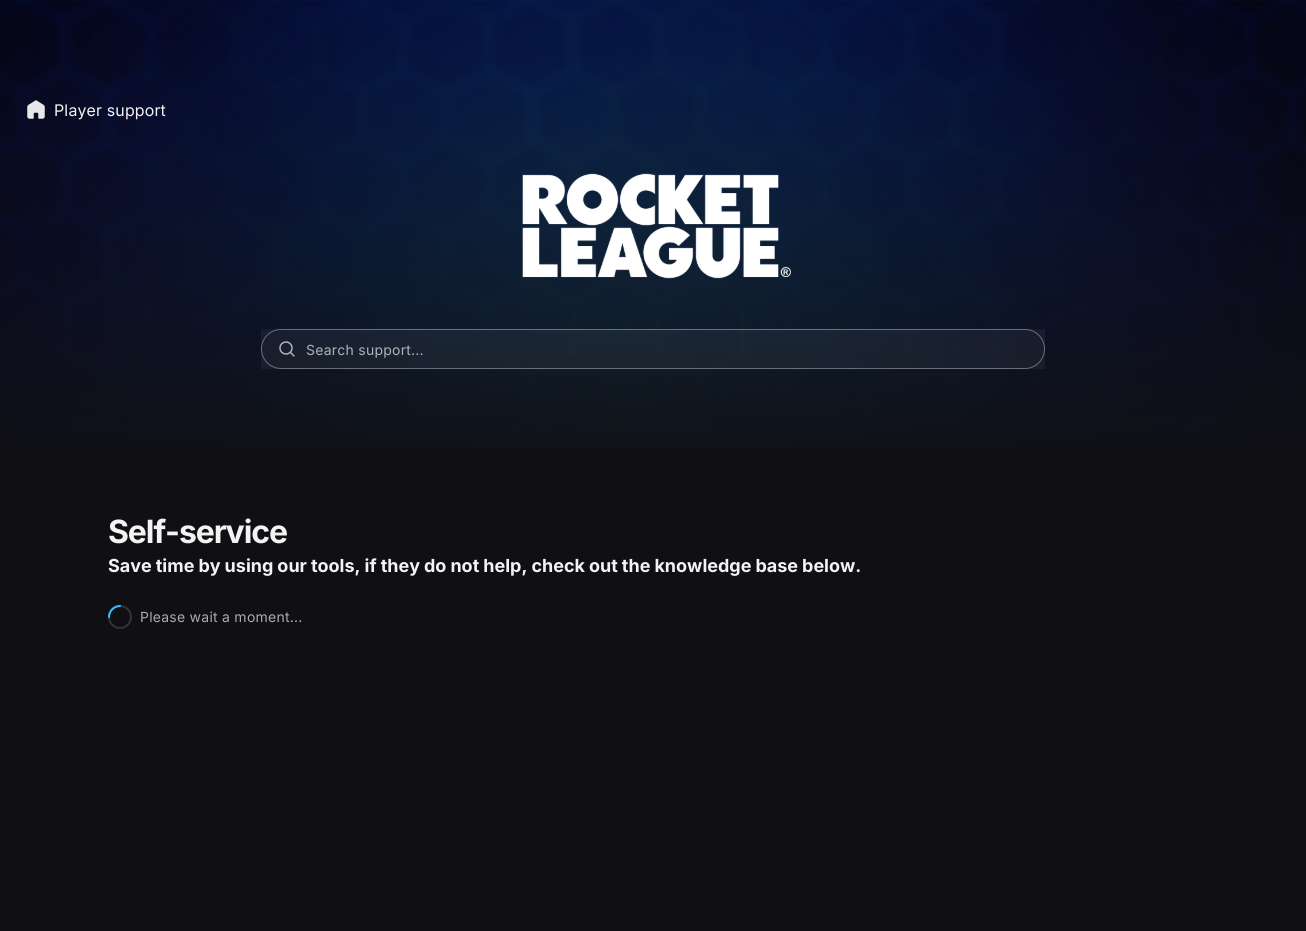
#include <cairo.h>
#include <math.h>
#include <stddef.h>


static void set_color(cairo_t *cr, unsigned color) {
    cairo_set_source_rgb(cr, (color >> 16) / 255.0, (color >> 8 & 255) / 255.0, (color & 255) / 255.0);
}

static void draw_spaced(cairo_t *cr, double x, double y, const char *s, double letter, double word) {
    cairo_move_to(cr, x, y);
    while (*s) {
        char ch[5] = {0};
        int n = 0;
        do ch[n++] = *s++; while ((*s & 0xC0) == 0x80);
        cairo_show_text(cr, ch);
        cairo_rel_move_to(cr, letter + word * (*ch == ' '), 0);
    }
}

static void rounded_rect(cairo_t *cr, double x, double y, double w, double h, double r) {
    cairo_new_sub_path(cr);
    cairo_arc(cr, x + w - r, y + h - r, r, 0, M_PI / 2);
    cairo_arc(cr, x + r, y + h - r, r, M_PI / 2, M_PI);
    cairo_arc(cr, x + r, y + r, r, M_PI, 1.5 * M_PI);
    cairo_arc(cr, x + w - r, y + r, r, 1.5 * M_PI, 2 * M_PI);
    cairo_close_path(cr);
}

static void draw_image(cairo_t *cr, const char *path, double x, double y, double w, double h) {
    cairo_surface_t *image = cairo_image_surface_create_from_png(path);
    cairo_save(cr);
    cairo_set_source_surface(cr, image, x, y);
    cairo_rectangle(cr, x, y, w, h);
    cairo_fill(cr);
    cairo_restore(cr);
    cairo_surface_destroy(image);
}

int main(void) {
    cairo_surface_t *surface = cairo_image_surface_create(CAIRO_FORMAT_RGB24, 1306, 931);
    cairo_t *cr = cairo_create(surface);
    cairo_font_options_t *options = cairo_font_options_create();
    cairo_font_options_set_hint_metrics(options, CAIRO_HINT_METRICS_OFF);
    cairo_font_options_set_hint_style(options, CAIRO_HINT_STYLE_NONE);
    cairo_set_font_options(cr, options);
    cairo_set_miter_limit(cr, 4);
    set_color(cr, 0x101014);
    cairo_paint(cr);
    draw_image(cr, "assets/img1.png", 0, 0, 1306, 449);
    draw_image(cr, "assets/img2.png", 27, 100, 18, 19);
    cairo_select_font_face(cr, "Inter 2", CAIRO_FONT_SLANT_NORMAL, CAIRO_FONT_WEIGHT_NORMAL);
    cairo_set_font_size(cr, 16);
    set_color(cr, 0xF3F3F3);
    draw_spaced(cr, 54, 116, "Player support", 0.2, 0);
    draw_image(cr, "assets/img3.png", 522, 173, 269, 106);
    cairo_set_source_rgba(cr, 1, 1, 1, 0.05);
    cairo_rectangle(cr, 261, 329, 784, 40);
    cairo_fill(cr);
    rounded_rect(cr, 261.5, 329.5, 783, 39, 19.5);
    cairo_set_source_rgba(cr, 1, 1, 1, 0.35);
    cairo_set_line_width(cr, 1);
    cairo_stroke(cr);
    draw_image(cr, "assets/img4.png", 279, 341, 16, 16);
    cairo_select_font_face(cr, "Inter", CAIRO_FONT_SLANT_NORMAL, CAIRO_FONT_WEIGHT_NORMAL);
    cairo_set_font_size(cr, 14);
    set_color(cr, 0xAFB2B7);
    draw_spaced(cr, 306, 355, "Search support...", 0.25, 0);
    cairo_select_font_face(cr, "Inter", CAIRO_FONT_SLANT_NORMAL, CAIRO_FONT_WEIGHT_BOLD);
    cairo_set_font_size(cr, 32);
    set_color(cr, 0xF3F3F3);
    draw_spaced(cr, 108, 543, "Self-service", -1.1, 0);
    cairo_set_font_size(cr, 18);
    draw_spaced(cr, 108, 572, "Save time by using our tools, if they do not help, check out the knowledge base below.", 0, -0.25);
    cairo_new_path(cr);
    cairo_arc(cr, 120, 617, 11, 0, 2 * M_PI);
    set_color(cr, 0x343437);
    cairo_set_line_width(cr, 2);
    cairo_stroke(cr);
    cairo_new_path(cr);
    cairo_move_to(cr, 109, 617);
    cairo_curve_to(cr, 109, 611, 114, 606, 120, 606);
    set_color(cr, 0x33BFFF);
    cairo_set_line_cap(cr, CAIRO_LINE_CAP_ROUND);
    cairo_stroke(cr);
    cairo_select_font_face(cr, "Inter", CAIRO_FONT_SLANT_NORMAL, CAIRO_FONT_WEIGHT_NORMAL);
    cairo_set_font_size(cr, 14);
    set_color(cr, 0xABABAD);
    draw_spaced(cr, 140, 622, "Please wait a moment...", 0.25, 0);
    cairo_surface_write_to_png(surface, "output.png");
    cairo_font_options_destroy(options);
    cairo_destroy(cr);
    cairo_surface_destroy(surface);
    return 0;
}
